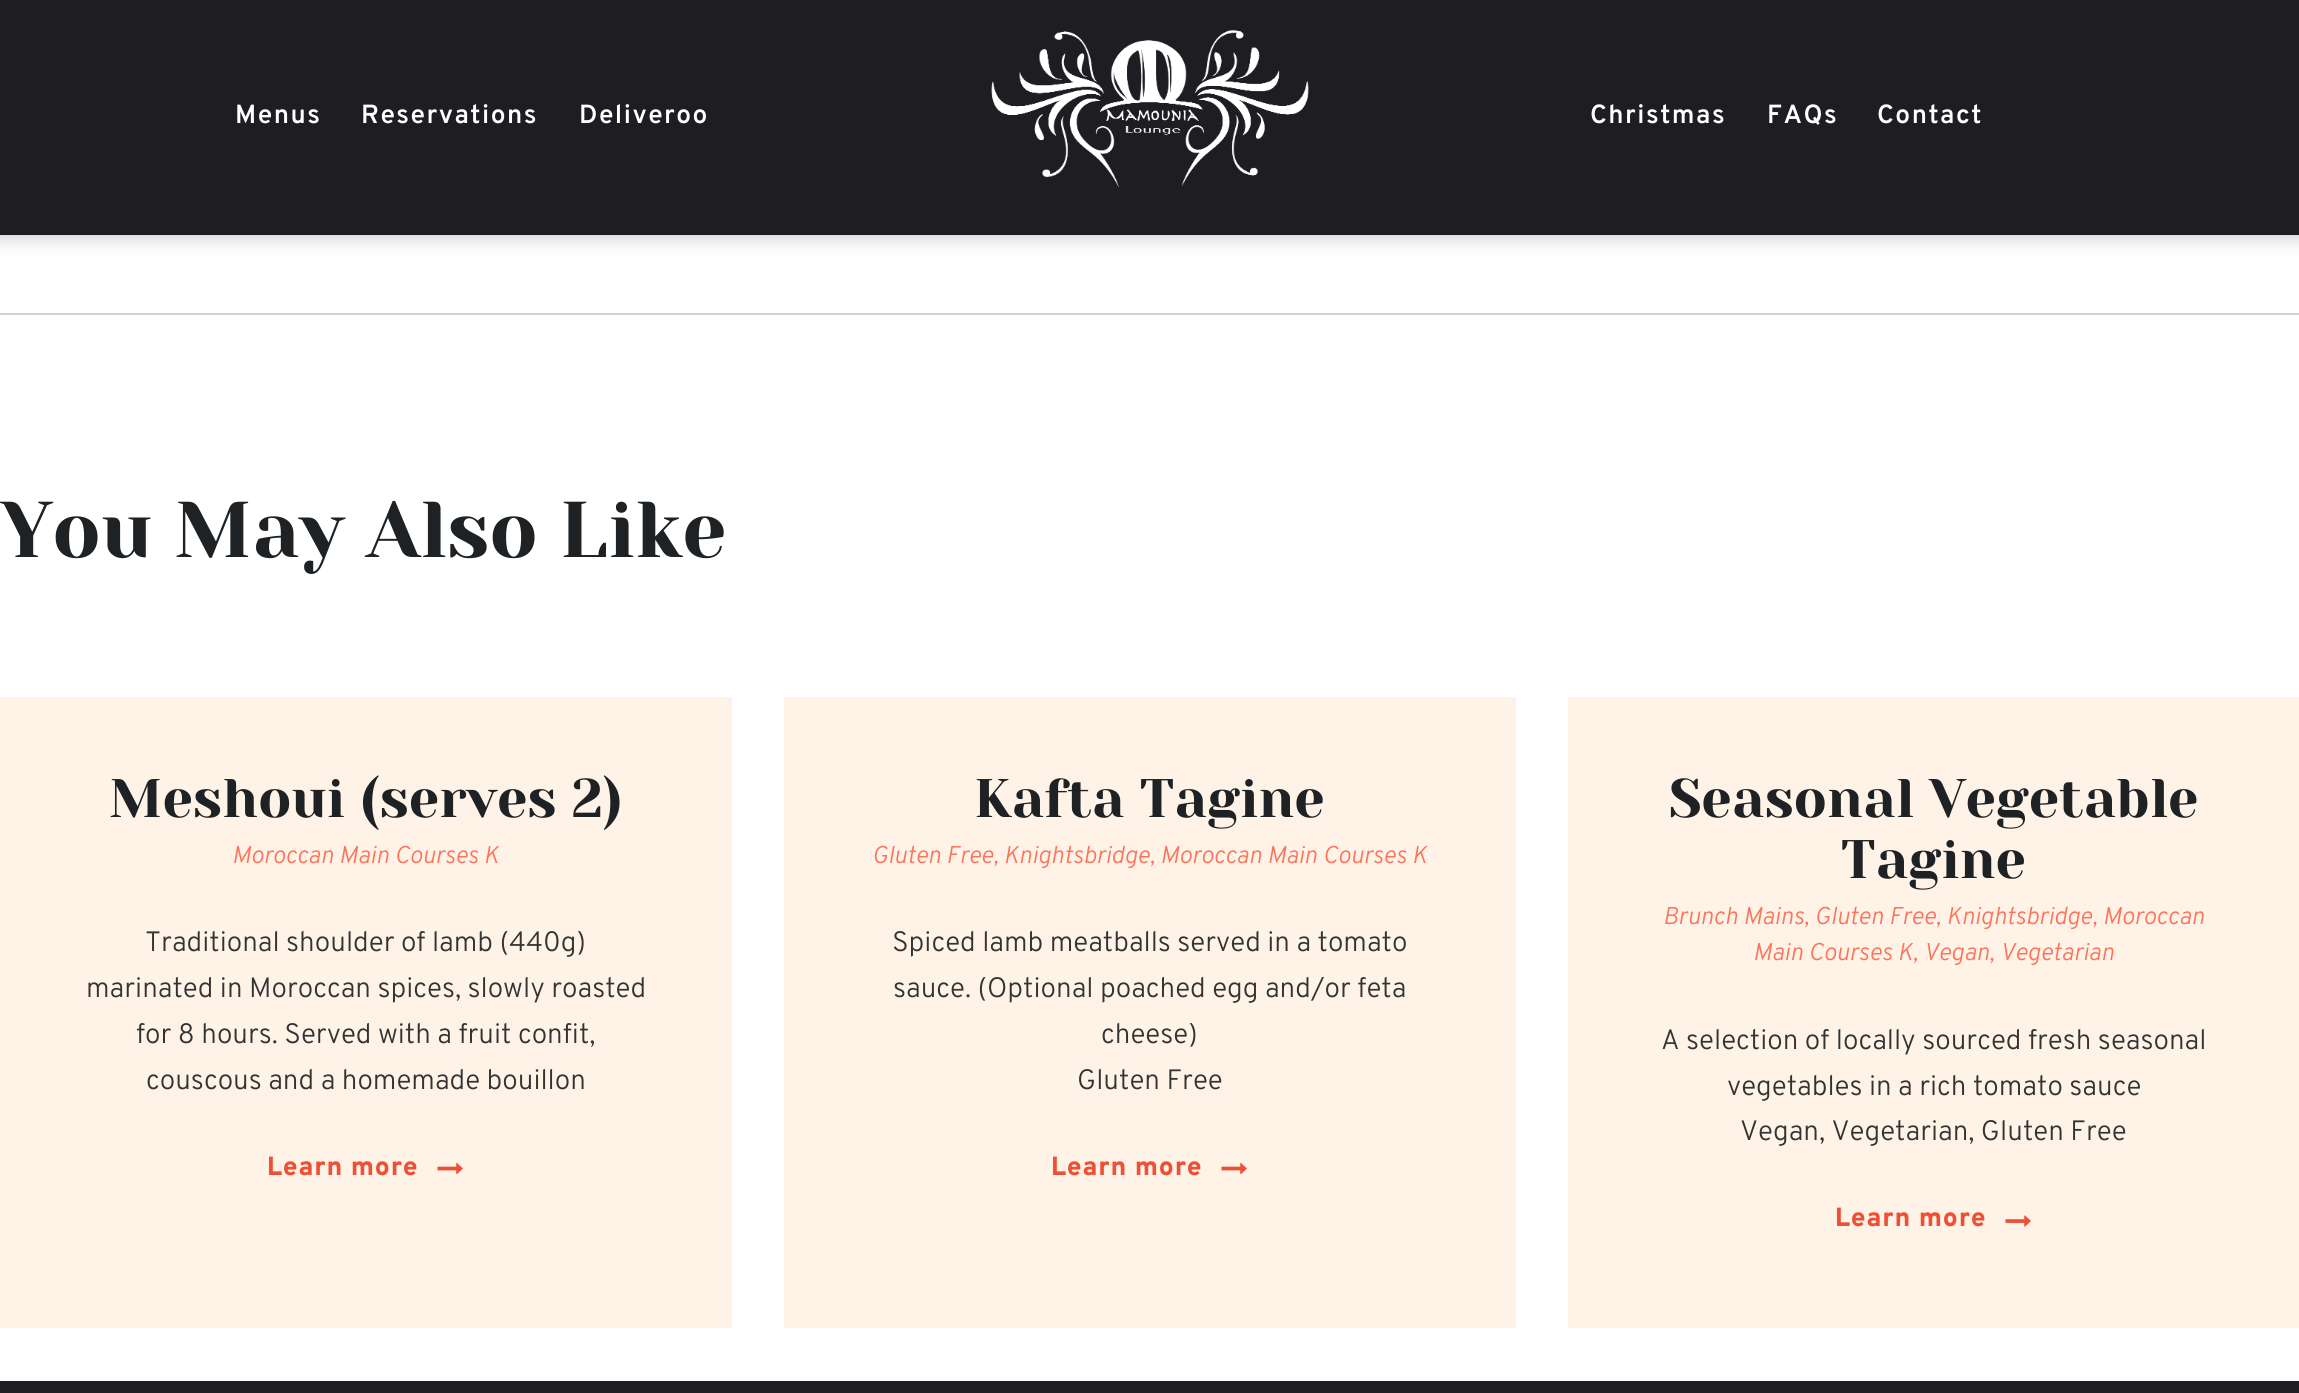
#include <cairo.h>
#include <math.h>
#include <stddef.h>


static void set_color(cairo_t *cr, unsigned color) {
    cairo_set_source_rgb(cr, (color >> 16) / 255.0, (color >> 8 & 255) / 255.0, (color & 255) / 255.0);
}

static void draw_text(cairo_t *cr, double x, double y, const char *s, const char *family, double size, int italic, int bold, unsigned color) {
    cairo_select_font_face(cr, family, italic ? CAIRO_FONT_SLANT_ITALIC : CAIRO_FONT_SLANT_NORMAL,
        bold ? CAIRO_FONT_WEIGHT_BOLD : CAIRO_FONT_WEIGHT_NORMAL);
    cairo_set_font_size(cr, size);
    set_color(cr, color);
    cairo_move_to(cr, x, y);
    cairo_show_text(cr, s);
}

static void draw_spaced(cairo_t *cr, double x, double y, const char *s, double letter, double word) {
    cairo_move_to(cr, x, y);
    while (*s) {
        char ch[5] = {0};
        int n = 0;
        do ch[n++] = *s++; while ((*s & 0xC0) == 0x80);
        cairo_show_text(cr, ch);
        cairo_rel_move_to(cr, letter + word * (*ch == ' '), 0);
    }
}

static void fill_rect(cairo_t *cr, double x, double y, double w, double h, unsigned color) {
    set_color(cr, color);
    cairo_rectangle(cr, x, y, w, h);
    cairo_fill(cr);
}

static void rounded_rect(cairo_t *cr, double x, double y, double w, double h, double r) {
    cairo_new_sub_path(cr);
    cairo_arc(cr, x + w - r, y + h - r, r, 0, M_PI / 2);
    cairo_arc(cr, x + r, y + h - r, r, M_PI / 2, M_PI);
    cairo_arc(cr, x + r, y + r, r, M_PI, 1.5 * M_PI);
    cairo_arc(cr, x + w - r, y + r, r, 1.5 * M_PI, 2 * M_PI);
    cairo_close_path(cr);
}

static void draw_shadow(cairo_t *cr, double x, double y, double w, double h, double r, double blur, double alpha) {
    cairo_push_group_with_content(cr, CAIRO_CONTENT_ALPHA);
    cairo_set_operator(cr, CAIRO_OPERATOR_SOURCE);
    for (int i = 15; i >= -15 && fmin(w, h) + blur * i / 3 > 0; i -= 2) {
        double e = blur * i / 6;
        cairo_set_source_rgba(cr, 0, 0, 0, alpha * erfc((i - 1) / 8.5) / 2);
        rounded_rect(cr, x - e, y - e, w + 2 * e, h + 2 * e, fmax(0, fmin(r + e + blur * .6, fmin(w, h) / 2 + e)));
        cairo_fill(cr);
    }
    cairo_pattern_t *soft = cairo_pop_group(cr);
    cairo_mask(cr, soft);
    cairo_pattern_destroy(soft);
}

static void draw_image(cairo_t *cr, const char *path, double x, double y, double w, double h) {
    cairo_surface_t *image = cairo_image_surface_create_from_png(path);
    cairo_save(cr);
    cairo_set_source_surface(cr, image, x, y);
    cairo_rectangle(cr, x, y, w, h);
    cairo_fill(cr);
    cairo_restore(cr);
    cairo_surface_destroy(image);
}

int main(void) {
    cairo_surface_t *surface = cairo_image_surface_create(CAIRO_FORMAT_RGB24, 2299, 1393);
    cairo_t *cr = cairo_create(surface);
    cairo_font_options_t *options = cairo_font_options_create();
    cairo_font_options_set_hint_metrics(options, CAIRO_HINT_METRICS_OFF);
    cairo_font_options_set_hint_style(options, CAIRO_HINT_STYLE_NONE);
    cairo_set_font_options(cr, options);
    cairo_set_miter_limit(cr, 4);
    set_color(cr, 0xFFFFFF);
    cairo_paint(cr);
    set_color(cr, 0x000000);
    draw_shadow(cr, -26, 4, 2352, 234, 0, 9, 0.2);
    fill_rect(cr, 0, 0, 2299, 235, 0x1E1D22);
    cairo_select_font_face(cr, "Overpass SemiBold", CAIRO_FONT_SLANT_NORMAL, CAIRO_FONT_WEIGHT_NORMAL);
    cairo_set_font_size(cr, 26.25);
    set_color(cr, 0xFFFFFF);
    draw_spaced(cr, 235, 123, "Menus", 1.5, 0);
    draw_spaced(cr, 361, 123, "Reservations", 1.5, 0);
    draw_spaced(cr, 579, 123, "Deliveroo", 1.5, 0);
    draw_image(cr, "assets/img1.png", 991, 29, 318, 158);
    draw_spaced(cr, 1590, 123, "Christmas", 1.5, 0);
    draw_spaced(cr, 1767, 123, "FAQs", 1.5, 0);
    draw_spaced(cr, 1877, 123, "Contact", 1.5, 0);
    fill_rect(cr, 0, 313, 2299, 2, 0xD2D3D3);
    draw_text(cr, 0, 557, "You May Also Like", "Yeseva One", 79, 0, 0, 0x1E2225);
    fill_rect(cr, 0, 697, 732, 631, 0xFFF3E8);
    draw_text(cr, 109, 817, "Meshoui (serves 2)", "Yeseva One", 54.25, 0, 0, 0x1E2225);
    draw_text(cr, 232, 863, "Moroccan Main Courses K", "Overpass Light", 24.25, 1, 0, 0xFE7259);
    draw_text(cr, 145, 951, "Traditional shoulder of lamb (440g)", "Overpass Light", 28, 0, 0, 0x333333);
    draw_text(cr, 86, 997, "marinated in Moroccan spices, slowly roasted", "Overpass Light", 28, 0, 0, 0x333333);
    draw_text(cr, 136, 1043, "for 8 hours. Served with a fruit confit,", "Overpass Light", 28, 0, 0, 0x333333);
    draw_text(cr, 146, 1089, "couscous and a homemade bouillon", "Overpass Light", 28, 0, 0, 0x333333);
    cairo_select_font_face(cr, "Overpass ExtraBold", CAIRO_FONT_SLANT_NORMAL, CAIRO_FONT_WEIGHT_NORMAL);
    cairo_set_font_size(cr, 26.25);
    set_color(cr, 0xED5034);
    draw_spaced(cr, 267, 1175, "Learn more", 0.9, 0);
    draw_image(cr, "assets/img2.png", 437, 1163, 26, 12);
    fill_rect(cr, 784, 697, 732, 631, 0xFFF3E8);
    draw_text(cr, 974, 817, "Kafta Tagine", "Yeseva One", 54.25, 0, 0, 0x1E2225);
    draw_text(cr, 872, 863, "Gluten Free, Knightsbridge, Moroccan Main Courses K", "Overpass Light", 24.25, 1, 0, 0xFE7259);
    draw_text(cr, 892, 951, "Spiced lamb meatballs served in a tomato", "Overpass Light", 28, 0, 0, 0x333333);
    draw_text(cr, 893, 997, "sauce. (Optional poached egg and/or feta", "Overpass Light", 28, 0, 0, 0x333333);
    draw_text(cr, 1101, 1043, "cheese)", "Overpass Light", 28, 0, 0, 0x333333);
    draw_text(cr, 1077, 1089, "Gluten Free", "Overpass Light", 28, 0, 0, 0x333333);
    cairo_select_font_face(cr, "Overpass ExtraBold", CAIRO_FONT_SLANT_NORMAL, CAIRO_FONT_WEIGHT_NORMAL);
    cairo_set_font_size(cr, 26.25);
    set_color(cr, 0xED5034);
    draw_spaced(cr, 1051, 1175, "Learn more", 0.9, 0);
    draw_image(cr, "assets/img2.png", 1221, 1163, 26, 12);
    fill_rect(cr, 1568, 697, 731, 631, 0xFFF3E8);
    draw_text(cr, 1669, 817, "Seasonal Vegetable", "Yeseva One", 54.25, 0, 0, 0x1E2225);
    draw_text(cr, 1841, 878, "Tagine", "Yeseva One", 54.25, 0, 0, 0x1E2225);
    draw_text(cr, 1663, 924, "Brunch Mains, Gluten Free, Knightsbridge, Moroccan", "Overpass Light", 24.25, 1, 0, 0xFE7259);
    draw_text(cr, 1753, 960, "Main Courses K, Vegan, Vegetarian", "Overpass Light", 24.25, 1, 0, 0xFE7259);
    draw_text(cr, 1661, 1049, "A selection of locally sourced fresh seasonal", "Overpass Light", 28, 0, 0, 0x333333);
    draw_text(cr, 1727, 1095, "vegetables in a rich tomato sauce", "Overpass Light", 28, 0, 0, 0x333333);
    draw_text(cr, 1740, 1140, "Vegan, Vegetarian, Gluten Free", "Overpass Light", 28, 0, 0, 0x333333);
    cairo_select_font_face(cr, "Overpass ExtraBold", CAIRO_FONT_SLANT_NORMAL, CAIRO_FONT_WEIGHT_NORMAL);
    cairo_set_font_size(cr, 26.25);
    set_color(cr, 0xED5034);
    draw_spaced(cr, 1835, 1226, "Learn more", 0.9, 0);
    draw_image(cr, "assets/img3.png", 2005, 1215, 26, 12);
    fill_rect(cr, 0, 1381, 2299, 12, 0x1E1D22);
    cairo_surface_write_to_png(surface, "output.png");
    cairo_font_options_destroy(options);
    cairo_destroy(cr);
    cairo_surface_destroy(surface);
    return 0;
}
